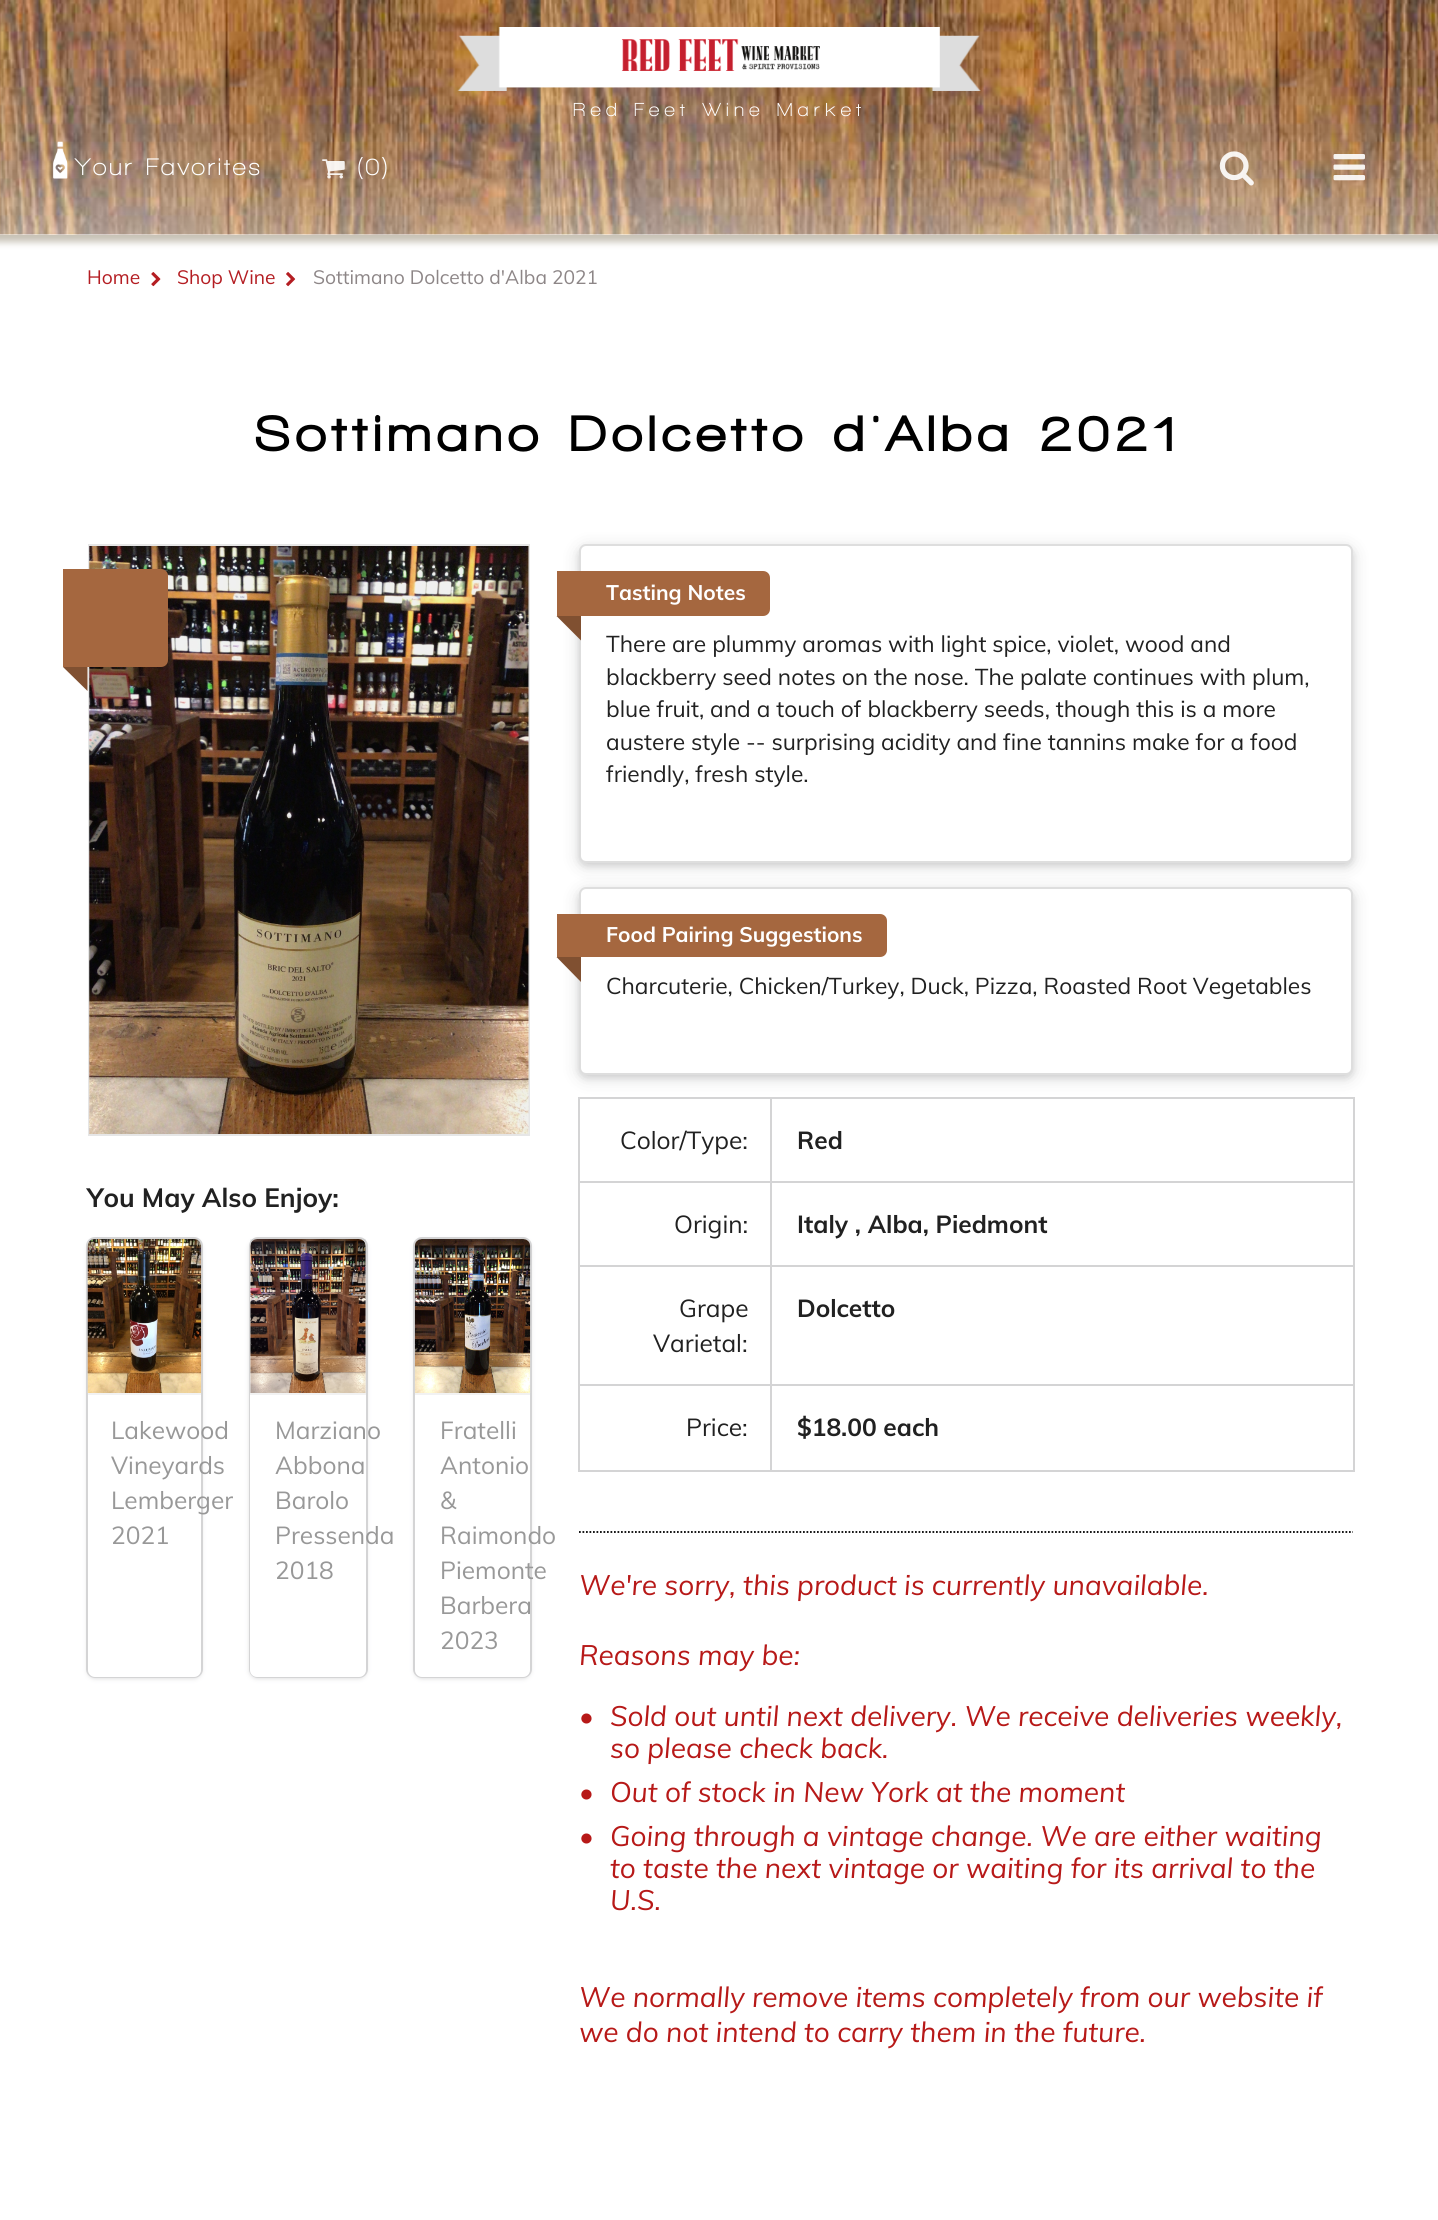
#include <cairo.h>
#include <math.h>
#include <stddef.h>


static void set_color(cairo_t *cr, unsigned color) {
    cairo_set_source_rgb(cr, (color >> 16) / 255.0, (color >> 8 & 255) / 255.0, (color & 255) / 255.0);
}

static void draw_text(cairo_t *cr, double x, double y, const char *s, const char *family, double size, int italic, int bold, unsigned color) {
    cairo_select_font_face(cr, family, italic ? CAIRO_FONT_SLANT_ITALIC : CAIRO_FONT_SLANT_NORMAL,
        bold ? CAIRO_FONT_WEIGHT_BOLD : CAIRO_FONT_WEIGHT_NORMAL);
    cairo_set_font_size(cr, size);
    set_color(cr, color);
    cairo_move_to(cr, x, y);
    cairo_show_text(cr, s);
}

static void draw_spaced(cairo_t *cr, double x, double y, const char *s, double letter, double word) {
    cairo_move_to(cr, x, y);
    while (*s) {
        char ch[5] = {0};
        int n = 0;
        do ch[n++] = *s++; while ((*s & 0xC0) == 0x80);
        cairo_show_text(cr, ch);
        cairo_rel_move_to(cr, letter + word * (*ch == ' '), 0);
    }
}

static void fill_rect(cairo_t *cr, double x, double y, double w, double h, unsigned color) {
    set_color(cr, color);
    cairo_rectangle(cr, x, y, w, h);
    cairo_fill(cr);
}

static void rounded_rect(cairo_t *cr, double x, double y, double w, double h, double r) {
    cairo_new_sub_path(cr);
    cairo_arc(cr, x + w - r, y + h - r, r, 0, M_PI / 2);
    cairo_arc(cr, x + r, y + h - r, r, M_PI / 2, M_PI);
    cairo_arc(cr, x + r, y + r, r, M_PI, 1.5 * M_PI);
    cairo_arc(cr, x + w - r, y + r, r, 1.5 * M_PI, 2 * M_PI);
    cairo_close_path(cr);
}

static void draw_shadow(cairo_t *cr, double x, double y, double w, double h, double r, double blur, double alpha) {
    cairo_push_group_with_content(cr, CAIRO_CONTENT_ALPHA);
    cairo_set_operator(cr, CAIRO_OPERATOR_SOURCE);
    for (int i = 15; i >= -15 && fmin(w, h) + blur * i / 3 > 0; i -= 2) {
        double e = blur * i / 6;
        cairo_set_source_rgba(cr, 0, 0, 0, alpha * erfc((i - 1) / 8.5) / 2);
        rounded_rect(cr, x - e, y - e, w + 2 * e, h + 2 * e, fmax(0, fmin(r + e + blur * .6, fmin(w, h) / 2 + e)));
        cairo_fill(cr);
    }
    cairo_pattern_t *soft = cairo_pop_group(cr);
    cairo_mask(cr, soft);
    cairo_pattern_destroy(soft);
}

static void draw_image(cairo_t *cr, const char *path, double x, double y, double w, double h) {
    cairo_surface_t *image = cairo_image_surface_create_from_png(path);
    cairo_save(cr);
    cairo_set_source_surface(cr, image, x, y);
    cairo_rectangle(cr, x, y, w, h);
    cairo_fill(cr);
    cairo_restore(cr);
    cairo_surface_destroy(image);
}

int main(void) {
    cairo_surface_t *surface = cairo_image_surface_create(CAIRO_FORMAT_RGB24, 1438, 2220);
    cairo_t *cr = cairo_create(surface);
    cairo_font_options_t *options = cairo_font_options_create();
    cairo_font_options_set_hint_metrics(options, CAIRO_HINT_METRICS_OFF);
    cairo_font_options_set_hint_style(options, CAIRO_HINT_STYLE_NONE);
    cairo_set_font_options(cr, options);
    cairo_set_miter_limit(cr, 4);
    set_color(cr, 0xFFFFFF);
    cairo_paint(cr);
    cairo_save(cr);
    cairo_set_fill_rule(cr, CAIRO_FILL_RULE_EVEN_ODD);
    cairo_new_path(cr);
    cairo_move_to(cr, 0, 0);
    cairo_line_to(cr, 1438, 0);
    cairo_line_to(cr, 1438, 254);
    cairo_line_to(cr, 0, 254);
    cairo_close_path(cr);
    cairo_move_to(cr, 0, 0);
    cairo_line_to(cr, 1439, 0);
    cairo_line_to(cr, 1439, 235);
    cairo_line_to(cr, 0, 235);
    cairo_close_path(cr);
    cairo_clip(cr);
    set_color(cr, 0xC7C1B5);
    draw_shadow(cr, -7, -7, 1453, 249, 0, 3.5, 1);
    cairo_restore(cr);
    draw_image(cr, "assets/img1.png", 0, 0, 1438, 235);
    draw_image(cr, "assets/img2.png", 457, 27, 524, 64);
    draw_image(cr, "assets/img3.png", 621, 39, 199, 32);
    cairo_select_font_face(cr, "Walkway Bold", CAIRO_FONT_SLANT_NORMAL, CAIRO_FONT_WEIGHT_BOLD);
    cairo_set_font_size(cr, 19.25);
    set_color(cr, 0xFFFFFF);
    draw_spaced(cr, 573, 116, "Red Feet Wine Market", 5.25, 0);
    draw_image(cr, "assets/img4.png", 53, 141, 15, 38);
    cairo_set_font_size(cr, 24.5);
    draw_spaced(cr, 75, 175, "Your Favorites", 2.6, 0);
    draw_image(cr, "assets/img5.png", 322, 159, 23, 20);
    draw_spaced(cr, 357, 175, "(0)", 2.6, 0);
    draw_image(cr, "assets/img6.png", 1219, 151, 35, 35);
    draw_image(cr, "assets/img7.png", 1333, 154, 32, 27);
    draw_text(cr, 87, 284, "Home", "Muli", 19.25, 0, 0, 0xB41D22);
    draw_image(cr, "assets/img8.png", 151, 272, 10, 15);
    draw_text(cr, 177, 284, "Shop Wine", "Muli", 19.25, 0, 0, 0xB41D22);
    draw_image(cr, "assets/img9.png", 286, 272, 10, 15);
    draw_text(cr, 313, 284, "Sottimano Dolcetto d'Alba 2021", "Muli", 19.25, 0, 0, 0x8D8687);
    cairo_select_font_face(cr, "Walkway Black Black", CAIRO_FONT_SLANT_NORMAL, CAIRO_FONT_WEIGHT_NORMAL);
    cairo_set_font_size(cr, 52.5);
    set_color(cr, 0x000000);
    draw_spaced(cr, 256, 451, "Sottimano Dolcetto d'Alba 2021", 7, 0);
    cairo_rectangle(cr, 89, 545, 440, 590);
    set_color(cr, 0xE6E6E6);
    cairo_stroke(cr);
    draw_image(cr, "assets/img10.png", 89, 546, 440, 588);
    set_color(cr, 0xA5673F);
    cairo_new_path(cr);
    cairo_move_to(cr, 63, 569);
    cairo_line_to(cr, 161, 569);
    cairo_curve_to(cr, 165, 569, 168, 572, 168, 576);
    cairo_line_to(cr, 168, 660);
    cairo_curve_to(cr, 168, 664, 165, 667, 161, 667);
    cairo_line_to(cr, 63, 667);
    cairo_close_path(cr);
    cairo_fill(cr);
    set_color(cr, 0x805031);
    cairo_new_path(cr);
    cairo_move_to(cr, 87.5, 667);
    cairo_line_to(cr, 87.5, 691);
    cairo_line_to(cr, 63, 667);
    cairo_close_path(cr);
    cairo_fill(cr);
    draw_text(cr, 87, 1207, "You May Also Enjoy:", "Muli", 26.25, 0, 1, 0x212121);
    rounded_rect(cr, 87, 1238, 115, 439, 8);
    set_color(cr, 0xD4D4D5);
    cairo_stroke(cr);
    set_color(cr, 0xD4D4D5);
    draw_shadow(cr, 88, 1241, 113, 437, 7, 2.5, 1);
    set_color(cr, 0xFFFFFF);
    rounded_rect(cr, 88, 1239, 113, 438, 7);
    cairo_fill(cr);
    draw_image(cr, "assets/img11.png", 87, 1239, 115, 154);
    fill_rect(cr, 88, 1393, 113, 2, 0xF2F2F2);
    draw_text(cr, 111, 1439, "Lakewood", "Muli", 24.5, 0, 0, 0x989898);
    draw_text(cr, 111, 1474, "Vineyards", "Muli", 24.5, 0, 0, 0x989898);
    draw_text(cr, 111, 1509, "Lemberger", "Muli", 24.5, 0, 0, 0x989898);
    draw_text(cr, 111, 1544, "2021", "Muli", 24.5, 0, 0, 0x989898);
    rounded_rect(cr, 250, 1238, 117, 439, 8);
    set_color(cr, 0xD4D4D5);
    cairo_stroke(cr);
    set_color(cr, 0xD4D4D5);
    draw_shadow(cr, 250, 1241, 116, 437, 7, 2.5, 1);
    set_color(cr, 0xFFFFFF);
    rounded_rect(cr, 250, 1239, 116, 438, 7);
    cairo_fill(cr);
    cairo_set_source_rgba(cr, 0, 0, 0, 0.05);
    cairo_rectangle(cr, 250, 1239, 116, 154);
    cairo_fill(cr);
    draw_image(cr, "assets/img12.png", 250, 1239, 116, 154);
    fill_rect(cr, 250, 1393, 116, 2, 0xF2F2F2);
    draw_text(cr, 275, 1439, "Marziano", "Muli", 24.5, 0, 0, 0x989898);
    draw_text(cr, 275, 1474, "Abbona", "Muli", 24.5, 0, 0, 0x989898);
    draw_text(cr, 275, 1509, "Barolo", "Muli", 24.5, 0, 0, 0x989898);
    draw_text(cr, 275, 1544, "Pressenda", "Muli", 24.5, 0, 0, 0x989898);
    draw_text(cr, 275, 1579, "2018", "Muli", 24.5, 0, 0, 0x989898);
    rounded_rect(cr, 414, 1238, 117, 439, 8);
    set_color(cr, 0xD4D4D5);
    cairo_stroke(cr);
    set_color(cr, 0xD4D4D5);
    draw_shadow(cr, 415, 1241, 115, 437, 7, 2.5, 1);
    set_color(cr, 0xFFFFFF);
    rounded_rect(cr, 415, 1239, 115, 438, 7);
    cairo_fill(cr);
    draw_image(cr, "assets/img13.png", 414, 1239, 117, 154);
    fill_rect(cr, 415, 1393, 115, 2, 0xF2F2F2);
    draw_text(cr, 440, 1439, "Fratelli", "Muli", 24.5, 0, 0, 0x989898);
    draw_text(cr, 440, 1474, "Antonio", "Muli", 24.5, 0, 0, 0x989898);
    draw_text(cr, 440, 1509, "&", "Muli", 24.5, 0, 0, 0x989898);
    draw_text(cr, 440, 1544, "Raimondo", "Muli", 24.5, 0, 0, 0x989898);
    draw_text(cr, 440, 1579, "Piemonte", "Muli", 24.5, 0, 0, 0x989898);
    draw_text(cr, 440, 1614, "Barbera", "Muli", 24.5, 0, 0, 0x989898);
    draw_text(cr, 440, 1649, "2023", "Muli", 24.5, 0, 0, 0x989898);
    set_color(cr, 0x222426);
    draw_shadow(cr, 579, 548, 774, 318, 7, 9, 0.15);
    draw_shadow(cr, 579, 548, 774, 318, 7, 3.5, 0.12);
    set_color(cr, 0xFFFFFF);
    rounded_rect(cr, 579, 544, 774, 319, 7);
    cairo_fill(cr);
    rounded_rect(cr, 580, 545, 772, 317, 6);
    cairo_set_source_rgba(cr, 0.133, 0.141, 0.149, 0.15);
    cairo_stroke(cr);
    set_color(cr, 0xA5673F);
    cairo_new_path(cr);
    cairo_move_to(cr, 557, 571);
    cairo_line_to(cr, 763, 571);
    cairo_curve_to(cr, 767, 571, 770, 574, 770, 578);
    cairo_line_to(cr, 770, 609);
    cairo_curve_to(cr, 770, 613, 767, 616, 763, 616);
    cairo_line_to(cr, 557, 616);
    cairo_close_path(cr);
    cairo_fill(cr);
    draw_text(cr, 606, 600, "Tasting Notes", "Muli", 21, 0, 1, 0xFFFFFF);
    set_color(cr, 0x805031);
    cairo_new_path(cr);
    cairo_move_to(cr, 581, 616);
    cairo_line_to(cr, 581, 640.5);
    cairo_line_to(cr, 556.5, 616);
    cairo_close_path(cr);
    cairo_fill(cr);
    draw_text(cr, 606, 652, "There are plummy aromas with light spice, violet, wood and", "Muli", 22.75, 0, 0, 0x212121);
    draw_text(cr, 606, 685, "blackberry seed notes on the nose. The palate continues with plum,", "Muli", 22.75, 0, 0, 0x212121);
    draw_text(cr, 606, 717, "blue fruit, and a touch of blackberry seeds, though this is a more", "Muli", 22.75, 0, 0, 0x212121);
    draw_text(cr, 606, 750, "austere style -- surprising acidity and fine tannins make for a food", "Muli", 22.75, 0, 0, 0x212121);
    draw_text(cr, 606, 782, "friendly, fresh style.", "Muli", 22.75, 0, 0, 0x212121);
    cairo_rectangle(cr, 579, 1098, 775, 373);
    set_color(cr, 0xD4D4D5);
    cairo_stroke(cr);
    set_color(cr, 0x222426);
    draw_shadow(cr, 579, 891, 774, 187, 7, 9, 0.15);
    draw_shadow(cr, 579, 891, 774, 187, 7, 3.5, 0.12);
    set_color(cr, 0xFFFFFF);
    rounded_rect(cr, 579, 887, 774, 188, 7);
    cairo_fill(cr);
    rounded_rect(cr, 580, 888, 772, 186, 6);
    cairo_set_source_rgba(cr, 0.133, 0.141, 0.149, 0.15);
    cairo_stroke(cr);
    set_color(cr, 0xA5673F);
    cairo_new_path(cr);
    cairo_move_to(cr, 557, 914);
    cairo_line_to(cr, 880, 914);
    cairo_curve_to(cr, 884, 914, 887, 917, 887, 921);
    cairo_line_to(cr, 887, 950);
    cairo_curve_to(cr, 887, 954, 884, 957, 880, 957);
    cairo_line_to(cr, 557, 957);
    cairo_close_path(cr);
    cairo_fill(cr);
    draw_text(cr, 606, 942, "Food Pairing Suggestions", "Muli", 21, 0, 1, 0xFFFFFF);
    set_color(cr, 0x805031);
    cairo_new_path(cr);
    cairo_move_to(cr, 581, 957);
    cairo_line_to(cr, 581, 982);
    cairo_line_to(cr, 556.5, 957);
    cairo_close_path(cr);
    cairo_fill(cr);
    draw_text(cr, 606, 994, "Charcuterie, Chicken/Turkey, Duck, Pizza, Roasted Root Vegetables", "Muli", 22.75, 0, 0, 0x212121);
    draw_text(cr, 620, 1149, "Color/Type:", "Muli", 24.5, 0, 0, 0x212121);
    fill_rect(cr, 770, 1099, 2, 371, 0xD4D4D5);
    draw_text(cr, 797, 1149, "Red", "Muli", 24.5, 0, 1, 0x212121);
    set_color(cr, 0xD4D4D5);
    cairo_new_path(cr);
    cairo_move_to(cr, 579, 1181);
    cairo_line_to(cr, 579, 1265);
    cairo_line_to(cr, 579, 1183);
    cairo_line_to(cr, 1353, 1183);
    cairo_line_to(cr, 1353, 1265);
    cairo_line_to(cr, 1353, 1181);
    cairo_close_path(cr);
    cairo_fill(cr);
    draw_text(cr, 674, 1233, "Origin:", "Muli", 24.5, 0, 0, 0x212121);
    draw_text(cr, 797, 1233, "Italy , Alba, Piedmont", "Muli", 24.5, 0, 1, 0x212121);
    set_color(cr, 0xD4D4D5);
    cairo_new_path(cr);
    cairo_move_to(cr, 579, 1265);
    cairo_line_to(cr, 579, 1384);
    cairo_line_to(cr, 579, 1267);
    cairo_line_to(cr, 1353, 1267);
    cairo_line_to(cr, 1353, 1384);
    cairo_line_to(cr, 1353, 1265);
    cairo_close_path(cr);
    cairo_fill(cr);
    draw_text(cr, 679, 1317, "Grape", "Muli", 24.5, 0, 0, 0x212121);
    draw_text(cr, 653, 1352, "Varietal:", "Muli", 24.5, 0, 0, 0x212121);
    draw_text(cr, 797, 1317, "Dolcetto", "Muli", 24.5, 0, 1, 0x212121);
    set_color(cr, 0xD4D4D5);
    cairo_new_path(cr);
    cairo_move_to(cr, 579, 1384);
    cairo_line_to(cr, 579, 1468);
    cairo_line_to(cr, 579, 1386);
    cairo_line_to(cr, 1353, 1386);
    cairo_line_to(cr, 1353, 1468);
    cairo_line_to(cr, 1353, 1384);
    cairo_close_path(cr);
    cairo_fill(cr);
    draw_text(cr, 686, 1436, "Price:", "Muli", 24.5, 0, 0, 0x212121);
    draw_text(cr, 797, 1436, "$18.00 each", "Muli", 24.5, 0, 1, 0x212121);
    cairo_new_path(cr);
    cairo_move_to(cr, 579, 1532);
    cairo_line_to(cr, 1353, 1532);
    set_color(cr, 0x000000);
    cairo_set_line_width(cr, 1.8);
    cairo_set_dash(cr, (double[]){1.75, 1.75}, 2, 0);
    cairo_stroke(cr);
    draw_text(cr, 579, 1595, "We're sorry, this product is currently unavailable.", "Muli", 28, 1, 0, 0xB71918);
    draw_text(cr, 579, 1665, "Reasons may be:", "Muli", 28, 1, 0, 0xB71918);
    draw_text(cr, 579, 1726, "•", "Muli", 28, 1, 0, 0xB71918);
    draw_text(cr, 610, 1726, "Sold out until next delivery. We receive deliveries weekly,", "Muli", 28, 1, 0, 0xB71918);
    draw_text(cr, 610, 1758, "so please check back.", "Muli", 28, 1, 0, 0xB71918);
    draw_text(cr, 579, 1802, "•", "Muli", 28, 1, 0, 0xB71918);
    draw_text(cr, 610, 1802, "Out of stock in New York at the moment", "Muli", 28, 1, 0, 0xB71918);
    draw_text(cr, 579, 1846, "•", "Muli", 28, 1, 0, 0xB71918);
    draw_text(cr, 610, 1846, "Going through a vintage change. We are either waiting", "Muli", 28, 1, 0, 0xB71918);
    draw_text(cr, 610, 1878, "to taste the next vintage or waiting for its arrival to the", "Muli", 28, 1, 0, 0xB71918);
    draw_text(cr, 610, 1910, "U.S.", "Muli", 28, 1, 0, 0xB71918);
    draw_text(cr, 579, 2007, "We normally remove items completely from our website if", "Muli", 28, 1, 0, 0xB71918);
    draw_text(cr, 579, 2042, "we do not intend to carry them in the future.", "Muli", 28, 1, 0, 0xB71918);
    cairo_surface_write_to_png(surface, "output.png");
    cairo_font_options_destroy(options);
    cairo_destroy(cr);
    cairo_surface_destroy(surface);
    return 0;
}
